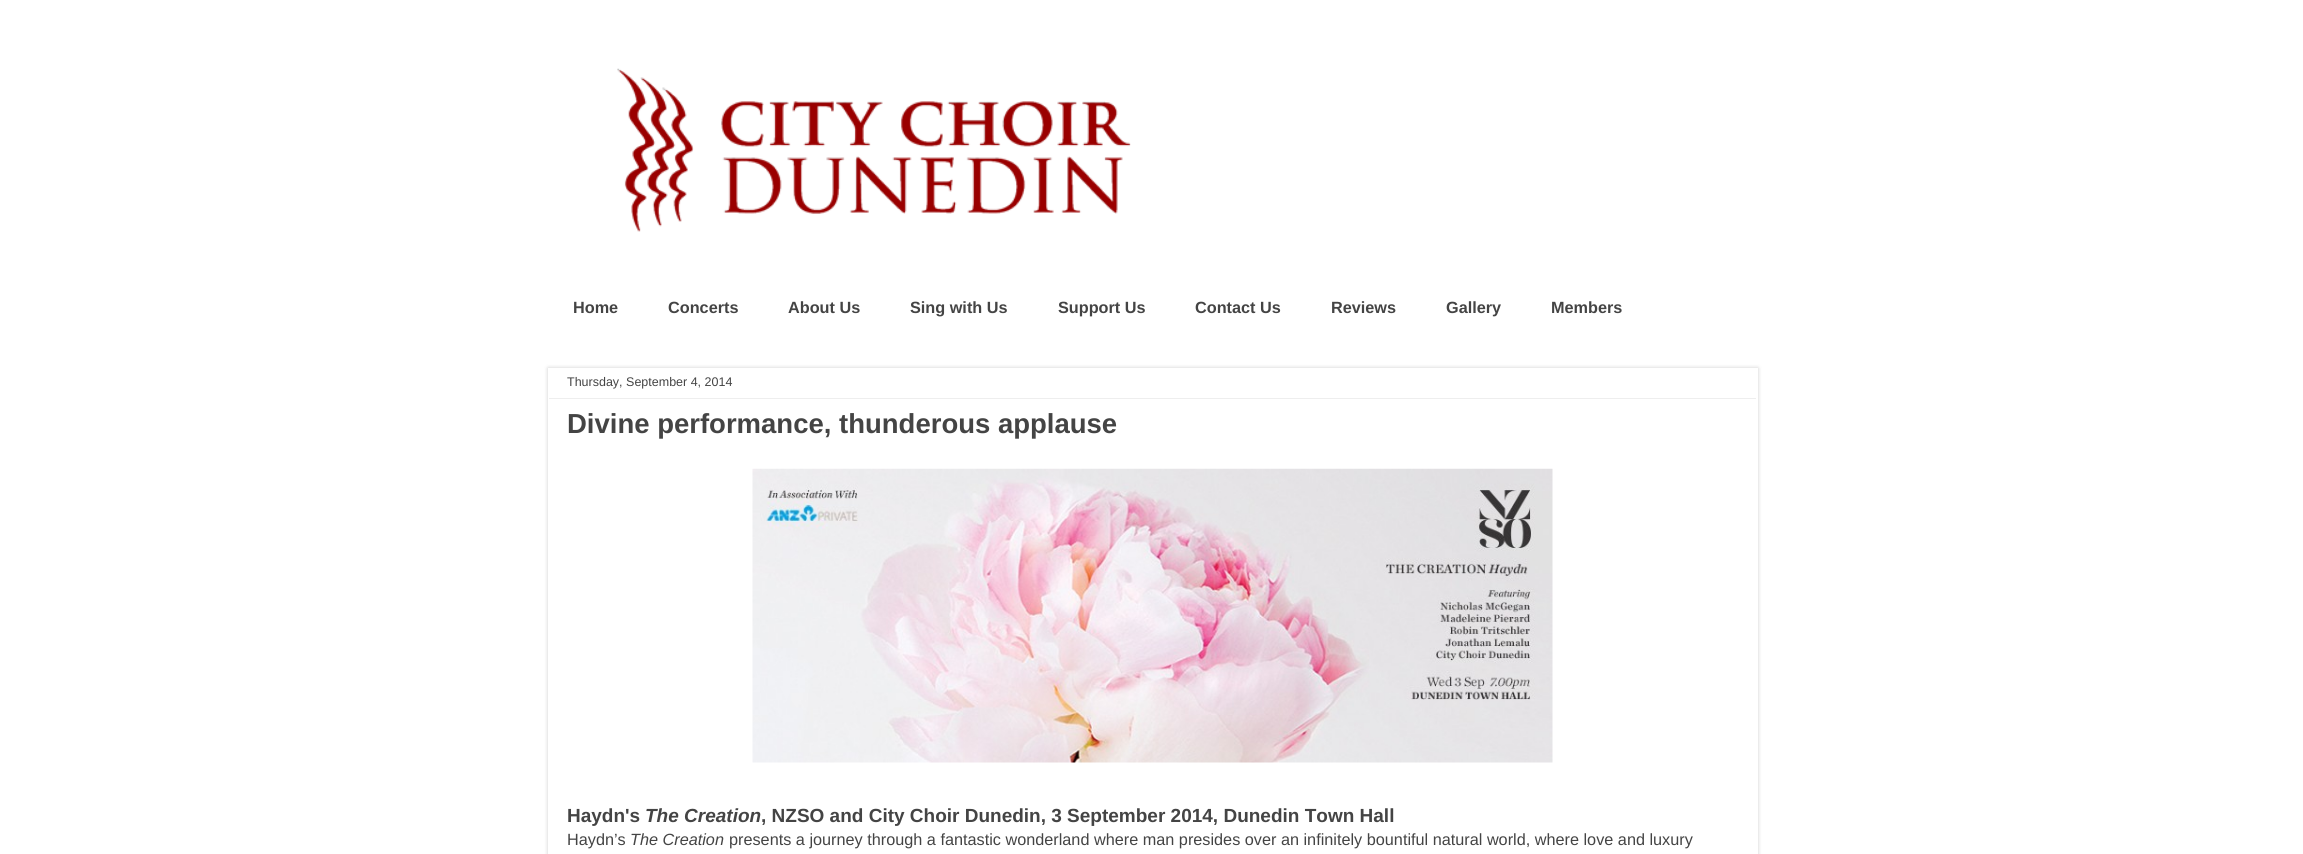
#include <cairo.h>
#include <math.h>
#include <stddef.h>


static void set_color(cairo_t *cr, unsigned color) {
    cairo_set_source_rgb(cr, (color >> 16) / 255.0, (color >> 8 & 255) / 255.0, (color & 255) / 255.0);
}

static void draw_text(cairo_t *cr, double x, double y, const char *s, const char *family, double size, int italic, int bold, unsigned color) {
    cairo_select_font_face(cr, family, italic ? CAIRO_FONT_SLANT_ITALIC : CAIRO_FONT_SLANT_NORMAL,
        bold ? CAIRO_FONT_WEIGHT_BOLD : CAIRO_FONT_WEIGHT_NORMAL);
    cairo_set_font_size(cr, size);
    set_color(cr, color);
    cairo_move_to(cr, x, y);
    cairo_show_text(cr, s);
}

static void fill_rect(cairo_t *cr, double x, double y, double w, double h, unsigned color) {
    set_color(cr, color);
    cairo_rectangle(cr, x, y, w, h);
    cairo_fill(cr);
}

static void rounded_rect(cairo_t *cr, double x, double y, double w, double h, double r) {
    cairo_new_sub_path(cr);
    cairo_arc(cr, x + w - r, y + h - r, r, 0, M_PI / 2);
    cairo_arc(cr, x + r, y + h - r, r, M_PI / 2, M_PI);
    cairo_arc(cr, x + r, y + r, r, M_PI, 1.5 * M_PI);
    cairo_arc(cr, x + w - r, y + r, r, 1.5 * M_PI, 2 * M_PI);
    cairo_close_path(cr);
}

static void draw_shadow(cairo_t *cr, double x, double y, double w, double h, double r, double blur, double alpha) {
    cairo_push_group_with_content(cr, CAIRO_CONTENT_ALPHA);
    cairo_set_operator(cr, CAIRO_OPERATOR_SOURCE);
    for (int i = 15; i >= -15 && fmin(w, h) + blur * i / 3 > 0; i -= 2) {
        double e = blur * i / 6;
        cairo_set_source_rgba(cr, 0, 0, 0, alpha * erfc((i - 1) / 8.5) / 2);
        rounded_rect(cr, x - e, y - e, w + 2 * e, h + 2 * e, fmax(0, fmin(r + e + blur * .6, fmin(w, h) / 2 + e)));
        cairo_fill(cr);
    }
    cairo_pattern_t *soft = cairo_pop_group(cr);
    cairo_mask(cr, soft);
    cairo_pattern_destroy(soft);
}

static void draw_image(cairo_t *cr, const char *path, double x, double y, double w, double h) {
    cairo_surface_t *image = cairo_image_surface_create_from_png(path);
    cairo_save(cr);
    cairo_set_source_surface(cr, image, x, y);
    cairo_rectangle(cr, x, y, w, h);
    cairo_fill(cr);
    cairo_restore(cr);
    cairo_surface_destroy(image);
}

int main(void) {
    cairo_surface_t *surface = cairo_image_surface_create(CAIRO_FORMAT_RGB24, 2303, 854);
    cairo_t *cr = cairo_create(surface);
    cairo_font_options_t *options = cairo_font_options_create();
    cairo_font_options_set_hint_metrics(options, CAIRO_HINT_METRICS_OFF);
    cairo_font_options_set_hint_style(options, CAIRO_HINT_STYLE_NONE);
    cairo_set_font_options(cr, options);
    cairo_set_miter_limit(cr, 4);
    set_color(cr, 0xFFFFFF);
    cairo_paint(cr);
    draw_image(cr, "assets/img1.png", 617, 68, 514, 164);
    draw_text(cr, 573, 313, "Home", "Liberation Sans", 16.25, 0, 1, 0x444444);
    draw_text(cr, 668, 313, "Concerts", "Liberation Sans", 16.25, 0, 1, 0x444444);
    draw_text(cr, 788, 313, "About Us", "Liberation Sans", 16.25, 0, 1, 0x444444);
    draw_text(cr, 910, 313, "Sing with Us", "Liberation Sans", 16.25, 0, 1, 0x444444);
    draw_text(cr, 1058, 313, "Support Us", "Liberation Sans", 16.25, 0, 1, 0x444444);
    draw_text(cr, 1195, 313, "Contact Us", "Liberation Sans", 16.25, 0, 1, 0x444444);
    draw_text(cr, 1331, 313, "Reviews", "Liberation Sans", 16.25, 0, 1, 0x444444);
    draw_text(cr, 1446, 313, "Gallery", "Liberation Sans", 16.25, 0, 1, 0x444444);
    draw_text(cr, 1551, 313, "Members", "Liberation Sans", 16.25, 0, 1, 0x444444);
    set_color(cr, 0x000000);
    draw_shadow(cr, 548, 368, 1210, 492, 0, 2, 0.2);
    fill_rect(cr, 548, 368, 1210, 486, 0xFFFFFF);
    draw_text(cr, 567, 386, "Thursday, September 4, 2014", "Liberation Sans", 12.5, 0, 0, 0x444444);
    fill_rect(cr, 549, 398, 1207, 1, 0xEEEEEE);
    draw_text(cr, 567, 433, "Divine performance, thunderous applause", "Liberation Sans", 27.5, 0, 1, 0x444444);
    draw_image(cr, "assets/img2.png", 752, 468, 801, 295);
    draw_text(cr, 567, 822, "Haydn's", "Liberation Sans", 19, 0, 1, 0x444444);
    draw_text(cr, 645, 822, "The Creation", "Liberation Sans", 19, 1, 1, 0x444444);
    draw_text(cr, 761, 822, ", NZSO and City Choir Dunedin, 3 September 2014, Dunedin Town Hall", "Liberation Sans", 19, 0, 1, 0x444444);
    draw_text(cr, 567, 845, "Haydn’s", "Liberation Sans", 16.25, 0, 0, 0x444444);
    draw_text(cr, 630, 845, "The Creation", "Liberation Sans", 16.25, 1, 0, 0x444444);
    draw_text(cr, 729, 845, "presents a journey through a fantastic wonderland where man presides over an infinitely bountiful natural world, where love and luxury", "Liberation Sans", 16.25, 0, 0, 0x444444);
    cairo_surface_write_to_png(surface, "output.png");
    cairo_font_options_destroy(options);
    cairo_destroy(cr);
    cairo_surface_destroy(surface);
    return 0;
}
